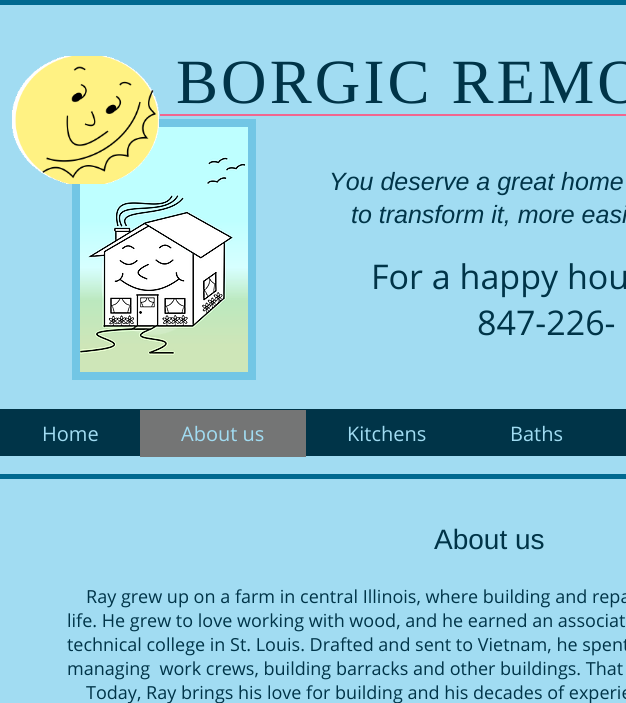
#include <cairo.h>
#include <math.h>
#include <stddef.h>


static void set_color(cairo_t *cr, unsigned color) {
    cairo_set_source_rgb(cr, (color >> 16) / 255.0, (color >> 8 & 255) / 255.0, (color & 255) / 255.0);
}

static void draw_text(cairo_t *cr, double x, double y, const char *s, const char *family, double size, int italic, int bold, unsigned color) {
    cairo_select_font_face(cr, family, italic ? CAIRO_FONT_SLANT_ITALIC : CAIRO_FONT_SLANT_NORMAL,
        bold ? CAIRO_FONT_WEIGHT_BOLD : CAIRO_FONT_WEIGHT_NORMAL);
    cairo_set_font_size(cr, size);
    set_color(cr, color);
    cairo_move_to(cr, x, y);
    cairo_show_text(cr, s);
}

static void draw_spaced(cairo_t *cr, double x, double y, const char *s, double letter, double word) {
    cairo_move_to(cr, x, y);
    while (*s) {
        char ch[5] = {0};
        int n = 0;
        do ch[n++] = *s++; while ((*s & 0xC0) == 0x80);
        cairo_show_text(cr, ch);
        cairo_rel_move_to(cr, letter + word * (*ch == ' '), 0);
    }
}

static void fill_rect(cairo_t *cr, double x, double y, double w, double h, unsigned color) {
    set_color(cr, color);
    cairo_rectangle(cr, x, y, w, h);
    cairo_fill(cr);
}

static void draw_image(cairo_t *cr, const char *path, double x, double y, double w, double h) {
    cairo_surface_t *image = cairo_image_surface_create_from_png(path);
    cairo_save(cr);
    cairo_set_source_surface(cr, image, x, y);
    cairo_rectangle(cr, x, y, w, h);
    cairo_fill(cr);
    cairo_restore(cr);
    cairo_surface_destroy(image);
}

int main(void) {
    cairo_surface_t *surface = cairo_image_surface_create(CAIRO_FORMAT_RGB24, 626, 703);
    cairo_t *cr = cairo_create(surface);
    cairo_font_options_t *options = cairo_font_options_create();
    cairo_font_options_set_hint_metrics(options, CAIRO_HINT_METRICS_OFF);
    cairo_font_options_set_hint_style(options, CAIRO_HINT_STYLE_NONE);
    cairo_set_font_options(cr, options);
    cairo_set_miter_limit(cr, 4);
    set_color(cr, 0x006990);
    cairo_paint(cr);
    fill_rect(cr, 0, 5, 626, 469, 0xA1DCF2);
    fill_rect(cr, 72, 119, 184, 261, 0x72C6E5);
    draw_image(cr, "assets/img2.png", 80, 127, 168, 245);
    draw_image(cr, "assets/img1.png", 12, 56, 147, 128);
    cairo_select_font_face(cr, "Liberation Serif", CAIRO_FONT_SLANT_NORMAL, CAIRO_FONT_WEIGHT_NORMAL);
    cairo_set_font_size(cr, 63);
    set_color(cr, 0x003448);
    draw_spaced(cr, 176, 103, "BORGIC REMO", 3.1, 0);
    fill_rect(cr, 160, 114, 466, 2, 0xF2668F);
    draw_text(cr, 329, 190, "You deserve a great home", "Liberation Sans", 25, 1, 0, 0x003448);
    draw_text(cr, 351, 223, "to transform it, more easi", "Liberation Sans", 25, 1, 0, 0x003448);
    draw_text(cr, 371, 289, "For a happy hou", "Open Sans", 34, 0, 0, 0x003448);
    draw_text(cr, 477, 335, "847-226-", "Open Sans", 34, 0, 0, 0x003448);
    fill_rect(cr, 0, 409, 626, 47, 0x003448);
    draw_text(cr, 42, 441, "Home", "Open Sans", 20, 0, 0, 0xA1DCF2);
    fill_rect(cr, 140, 410, 166, 47, 0x747575);
    draw_text(cr, 181, 441, "About us", "Open Sans", 20, 0, 0, 0xA1DCF2);
    draw_text(cr, 347, 441, "Kitchens", "Open Sans", 20, 0, 0, 0xA1DCF2);
    draw_text(cr, 510, 441, "Baths", "Open Sans", 20, 0, 0, 0xA1DCF2);
    fill_rect(cr, 0, 479, 626, 224, 0xA1DCF2);
    draw_text(cr, 434, 549, "About us", "Liberation Sans", 28, 0, 0, 0x003448);
    draw_text(cr, 86, 603, "Ray grew up on a farm in central Illinois, where building and repa", "Open Sans", 18, 0, 0, 0x003448);
    draw_text(cr, 67, 627, "life. He grew to love working with wood, and he earned an associat", "Open Sans", 18, 0, 0, 0x003448);
    draw_text(cr, 67, 651, "technical college in St. Louis. Drafted and sent to Vietnam, he spent", "Open Sans", 18, 0, 0, 0x003448);
    draw_text(cr, 67, 675, "managing  work crews, building barracks and other buildings. That", "Open Sans", 18, 0, 0, 0x003448);
    draw_text(cr, 86, 699, "Today, Ray brings his love for building and his decades of experie", "Open Sans", 18, 0, 0, 0x003448);
    cairo_surface_write_to_png(surface, "output.png");
    cairo_font_options_destroy(options);
    cairo_destroy(cr);
    cairo_surface_destroy(surface);
    return 0;
}
